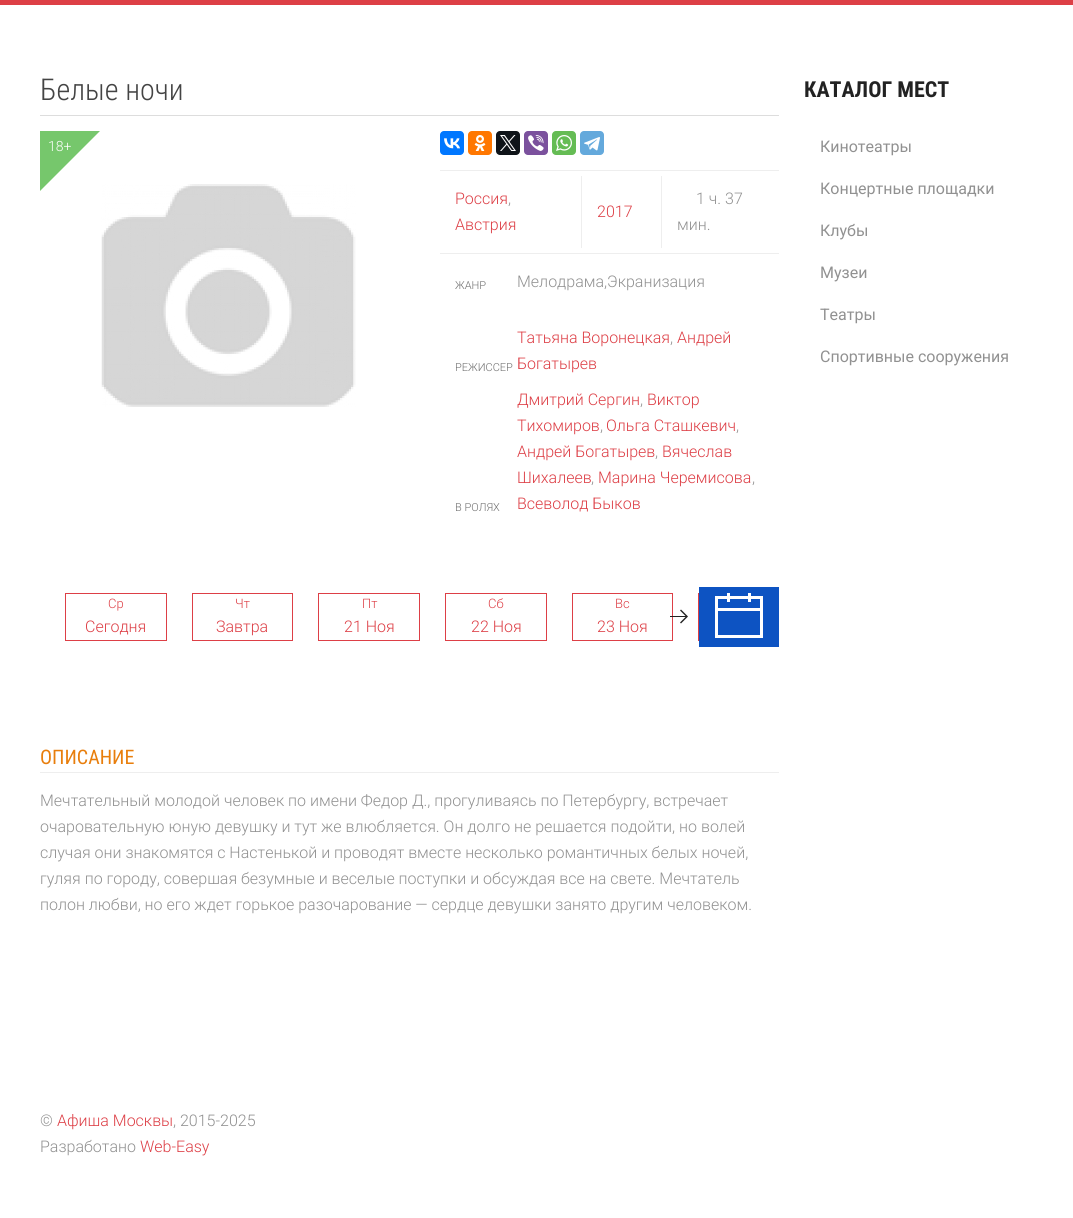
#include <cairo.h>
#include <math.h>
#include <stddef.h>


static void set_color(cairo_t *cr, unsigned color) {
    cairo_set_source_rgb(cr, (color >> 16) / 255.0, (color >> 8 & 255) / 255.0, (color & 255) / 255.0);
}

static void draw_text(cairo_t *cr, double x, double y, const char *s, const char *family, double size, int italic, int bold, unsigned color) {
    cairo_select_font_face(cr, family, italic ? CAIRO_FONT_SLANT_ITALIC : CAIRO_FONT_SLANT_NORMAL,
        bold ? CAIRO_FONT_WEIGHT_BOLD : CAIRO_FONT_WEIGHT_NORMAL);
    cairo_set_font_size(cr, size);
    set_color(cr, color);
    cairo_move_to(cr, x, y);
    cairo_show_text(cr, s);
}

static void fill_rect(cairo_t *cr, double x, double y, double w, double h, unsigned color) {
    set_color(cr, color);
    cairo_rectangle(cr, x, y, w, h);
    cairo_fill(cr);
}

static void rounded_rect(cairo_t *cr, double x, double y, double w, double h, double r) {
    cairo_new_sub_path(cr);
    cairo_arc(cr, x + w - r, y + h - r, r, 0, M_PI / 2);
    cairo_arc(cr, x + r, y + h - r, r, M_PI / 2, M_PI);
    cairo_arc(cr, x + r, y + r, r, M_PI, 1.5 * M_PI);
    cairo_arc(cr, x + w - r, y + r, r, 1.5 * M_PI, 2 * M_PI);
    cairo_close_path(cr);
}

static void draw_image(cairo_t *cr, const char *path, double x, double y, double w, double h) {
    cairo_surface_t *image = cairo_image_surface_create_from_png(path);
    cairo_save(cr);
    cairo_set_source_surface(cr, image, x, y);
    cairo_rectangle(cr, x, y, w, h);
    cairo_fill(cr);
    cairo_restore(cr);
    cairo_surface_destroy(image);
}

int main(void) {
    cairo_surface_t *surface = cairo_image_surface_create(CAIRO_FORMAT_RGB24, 1073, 1218);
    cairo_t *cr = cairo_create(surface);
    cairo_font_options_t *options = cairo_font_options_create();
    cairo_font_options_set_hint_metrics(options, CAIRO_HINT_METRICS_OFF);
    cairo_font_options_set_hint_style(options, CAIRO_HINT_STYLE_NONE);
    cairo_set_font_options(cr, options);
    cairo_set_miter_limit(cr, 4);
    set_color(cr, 0xFFFFFF);
    cairo_paint(cr);
    fill_rect(cr, 0, 0, 1073, 5, 0xDD3F46);
    fill_rect(cr, 40, 115, 739, 1, 0xDDDDDD);
    draw_text(cr, 40, 100, "Белые ночи", "Roboto Condensed Light", 30, 0, 0, 0x444444);
    set_color(cr, 0x76C76C);
    cairo_new_path(cr);
    cairo_move_to(cr, 40, 131);
    cairo_line_to(cr, 100, 131);
    cairo_line_to(cr, 40, 191);
    cairo_close_path(cr);
    cairo_fill(cr);
    draw_text(cr, 48, 151, "18+", "Roboto Light", 14, 0, 0, 0xFFFFFF);
    draw_image(cr, "assets/img1.png", 101, 184, 255, 223);
    set_color(cr, 0x0077FF);
    rounded_rect(cr, 440, 131, 24, 24, 4);
    cairo_fill(cr);
    draw_image(cr, "assets/img2.png", 444, 138, 16, 11);
    set_color(cr, 0xFF7700);
    rounded_rect(cr, 468, 131, 24, 24, 4);
    cairo_fill(cr);
    draw_image(cr, "assets/img3.png", 474, 135, 12, 16);
    set_color(cr, 0x0F1419);
    rounded_rect(cr, 496, 131, 24, 24, 4);
    cairo_fill(cr);
    draw_image(cr, "assets/img4.png", 500, 135, 16, 16);
    set_color(cr, 0x7B519D);
    rounded_rect(cr, 524, 131, 24, 24, 4);
    cairo_fill(cr);
    draw_image(cr, "assets/img5.png", 528, 135, 16, 16);
    set_color(cr, 0x65BC54);
    rounded_rect(cr, 552, 131, 24, 24, 4);
    cairo_fill(cr);
    draw_image(cr, "assets/img6.png", 556, 135, 16, 16);
    set_color(cr, 0x64A9DC);
    rounded_rect(cr, 580, 131, 24, 24, 4);
    cairo_fill(cr);
    draw_image(cr, "assets/img7.png", 584, 137, 16, 14);
    fill_rect(cr, 440, 170, 339, 1, 0xEEEEEE);
    fill_rect(cr, 440, 253, 339, 1, 0xEEEEEE);
    draw_text(cr, 455, 204, "Россия", "Roboto Light", 16, 0, 0, 0xDD3F46);
    draw_text(cr, 508, 204, ",", "Roboto Light", 16, 0, 0, 0x919191);
    draw_text(cr, 455, 230, "Австрия", "Roboto Light", 16, 0, 0, 0xDD3F46);
    fill_rect(cr, 581, 176, 1, 72, 0xEEEEEE);
    draw_text(cr, 597, 217, "2017", "Roboto Light", 16, 0, 0, 0xDD3F46);
    fill_rect(cr, 661, 176, 1, 72, 0xEEEEEE);
    draw_text(cr, 696, 204, "1 ч. 37", "Roboto Light", 16, 0, 0, 0x919191);
    draw_text(cr, 677, 230, "мин.", "Roboto Light", 16, 0, 0, 0x919191);
    draw_text(cr, 455, 289, "ЖАНР", "Roboto Light", 11, 0, 0, 0x707070);
    draw_text(cr, 517, 287, "Мелодрама,Экранизация", "Roboto Light", 16, 0, 0, 0x919191);
    draw_text(cr, 455, 371, "РЕЖИССЕР", "Roboto Light", 11, 0, 0, 0x707070);
    draw_text(cr, 517, 343, "Татьяна Воронецкая", "Roboto Light", 16, 0, 0, 0xDD3F46);
    draw_text(cr, 670, 343, ",", "Roboto Light", 16, 0, 0, 0x919191);
    draw_text(cr, 677, 343, "Андрей", "Roboto Light", 16, 0, 0, 0xDD3F46);
    draw_text(cr, 517, 369, "Богатырев", "Roboto Light", 16, 0, 0, 0xDD3F46);
    draw_text(cr, 455, 511, "В РОЛЯХ", "Roboto Light", 11, 0, 0, 0x707070);
    draw_text(cr, 517, 405, "Дмитрий Сергин", "Roboto Light", 16, 0, 0, 0xDD3F46);
    draw_text(cr, 640, 405, ",", "Roboto Light", 16, 0, 0, 0x919191);
    draw_text(cr, 647, 405, "Виктор", "Roboto Light", 16, 0, 0, 0xDD3F46);
    draw_text(cr, 517, 431, "Тихомиров", "Roboto Light", 16, 0, 0, 0xDD3F46);
    draw_text(cr, 600, 431, ",", "Roboto Light", 16, 0, 0, 0x919191);
    draw_text(cr, 606, 431, "Ольга Сташкевич", "Roboto Light", 16, 0, 0, 0xDD3F46);
    draw_text(cr, 736, 431, ",", "Roboto Light", 16, 0, 0, 0x919191);
    draw_text(cr, 517, 457, "Андрей Богатырев", "Roboto Light", 16, 0, 0, 0xDD3F46);
    draw_text(cr, 655, 457, ",", "Roboto Light", 16, 0, 0, 0x919191);
    draw_text(cr, 662, 457, "Вячеслав", "Roboto Light", 16, 0, 0, 0xDD3F46);
    draw_text(cr, 517, 483, "Шихалеев", "Roboto Light", 16, 0, 0, 0xDD3F46);
    draw_text(cr, 591, 483, ",", "Roboto Light", 16, 0, 0, 0x919191);
    draw_text(cr, 598, 483, "Марина Черемисова", "Roboto Light", 16, 0, 0, 0xDD3F46);
    draw_text(cr, 752, 483, ",", "Roboto Light", 16, 0, 0, 0x919191);
    draw_text(cr, 517, 509, "Всеволод Быков", "Roboto Light", 16, 0, 0, 0xDD3F46);
    cairo_rectangle(cr, 65.5, 593.5, 101, 47);
    cairo_set_line_width(cr, 1);
    cairo_stroke(cr);
    draw_text(cr, 108, 608, "Ср", "Roboto Light", 13, 0, 0, 0xDD3F46);
    draw_text(cr, 85, 632, "Сегодня", "Roboto Light", 16, 0, 0, 0xDD3F46);
    cairo_rectangle(cr, 192.5, 593.5, 100, 47);
    cairo_stroke(cr);
    draw_text(cr, 235, 608, "Чт", "Roboto Light", 13, 0, 0, 0xDD3F46);
    draw_text(cr, 216, 632, "Завтра", "Roboto Light", 16, 0, 0, 0xDD3F46);
    cairo_rectangle(cr, 318.5, 593.5, 101, 47);
    cairo_stroke(cr);
    draw_text(cr, 362, 608, "Пт", "Roboto Light", 13, 0, 0, 0xDD3F46);
    draw_text(cr, 344, 632, "21 Ноя", "Roboto Light", 16, 0, 0, 0xDD3F46);
    cairo_rectangle(cr, 445.5, 593.5, 101, 47);
    cairo_stroke(cr);
    draw_text(cr, 488, 608, "Сб", "Roboto Light", 13, 0, 0, 0xDD3F46);
    draw_text(cr, 471, 632, "22 Ноя", "Roboto Light", 16, 0, 0, 0xDD3F46);
    cairo_rectangle(cr, 572.5, 593.5, 100, 47);
    cairo_stroke(cr);
    draw_text(cr, 615, 608, "Вс", "Roboto Light", 13, 0, 0, 0xDD3F46);
    draw_text(cr, 597, 632, "23 Ноя", "Roboto Light", 16, 0, 0, 0xDD3F46);
    fill_rect(cr, 699, 587, 80, 60, 0x0D53C2);
    cairo_save(cr);
    cairo_rectangle(cr, 40, 593, 659, 48);
    cairo_clip(cr);
    cairo_rectangle(cr, 698.5, 593.5, 101, 47);
    set_color(cr, 0xDD3F46);
    cairo_stroke(cr);
    cairo_restore(cr);
    draw_image(cr, "assets/img8.png", 670, 609, 18, 15);
    set_color(cr, 0xFFFFFF);
    cairo_new_path(cr);
    cairo_move_to(cr, 715, 596);
    cairo_line_to(cr, 715, 638);
    cairo_line_to(cr, 763, 638);
    cairo_line_to(cr, 763, 596);
    cairo_close_path(cr);
    cairo_move_to(cr, 760, 635);
    cairo_line_to(cr, 718, 635);
    cairo_line_to(cr, 718, 611);
    cairo_line_to(cr, 760, 611);
    cairo_close_path(cr);
    cairo_move_to(cr, 760, 608);
    cairo_line_to(cr, 718, 608);
    cairo_line_to(cr, 718, 599);
    cairo_line_to(cr, 760, 599);
    cairo_close_path(cr);
    cairo_fill(cr);
    fill_rect(cr, 727, 593, 3, 9, 0xFFFFFF);
    fill_rect(cr, 748, 593, 3, 9, 0xFFFFFF);
    fill_rect(cr, 40, 772, 739, 1, 0xEEEEEE);
    draw_text(cr, 40, 764, "ОПИСАНИЕ", "Roboto Condensed", 20, 0, 0, 0xE87E0C);
    draw_text(cr, 40, 806, "Мечтательный молодой человек по имени Федор Д., прогуливаясь по Петербургу, встречает", "Roboto Light", 16, 0, 0, 0x919191);
    draw_text(cr, 40, 832, "очаровательную юную девушку и тут же влюбляется. Он долго не решается подойти, но волей", "Roboto Light", 16, 0, 0, 0x919191);
    draw_text(cr, 40, 858, "случая они знакомятся с Настенькой и проводят вместе несколько романтичных белых ночей,", "Roboto Light", 16, 0, 0, 0x919191);
    draw_text(cr, 40, 884, "гуляя по городу, совершая безумные и веселые поступки и обсуждая все на свете. Мечтатель", "Roboto Light", 16, 0, 0, 0x919191);
    draw_text(cr, 40, 910, "полон любви, но его ждет горькое разочарование — сердце девушки занято другим человеком.", "Roboto Light", 16, 0, 0, 0x919191);
    draw_text(cr, 804, 97, "КАТАЛОГ МЕСТ", "Roboto Condensed", 22, 0, 1, 0x222222);
    draw_text(cr, 820, 152, "Кинотеатры", "Roboto", 16, 0, 0, 0x919191);
    draw_text(cr, 820, 194, "Концертные площадки", "Roboto", 16, 0, 0, 0x919191);
    draw_text(cr, 820, 236, "Клубы", "Roboto", 16, 0, 0, 0x919191);
    draw_text(cr, 820, 278, "Музеи", "Roboto", 16, 0, 0, 0x919191);
    draw_text(cr, 820, 320, "Театры", "Roboto", 16, 0, 0, 0x919191);
    draw_text(cr, 820, 362, "Спортивные сооружения", "Roboto", 16, 0, 0, 0x919191);
    draw_text(cr, 40, 1126, "©", "Roboto Light", 16, 0, 0, 0x919191);
    draw_text(cr, 57, 1126, "Афиша Москвы", "Roboto Light", 16, 0, 0, 0xDD3F46);
    draw_text(cr, 173, 1126, ", 2015-2025", "Roboto Light", 16, 0, 0, 0x919191);
    draw_text(cr, 40, 1152, "Разработано", "Roboto Light", 16, 0, 0, 0x919191);
    draw_text(cr, 140, 1152, "Web-Easy", "Roboto Light", 16, 0, 0, 0xDD3F46);
    cairo_surface_write_to_png(surface, "output.png");
    cairo_font_options_destroy(options);
    cairo_destroy(cr);
    cairo_surface_destroy(surface);
    return 0;
}
